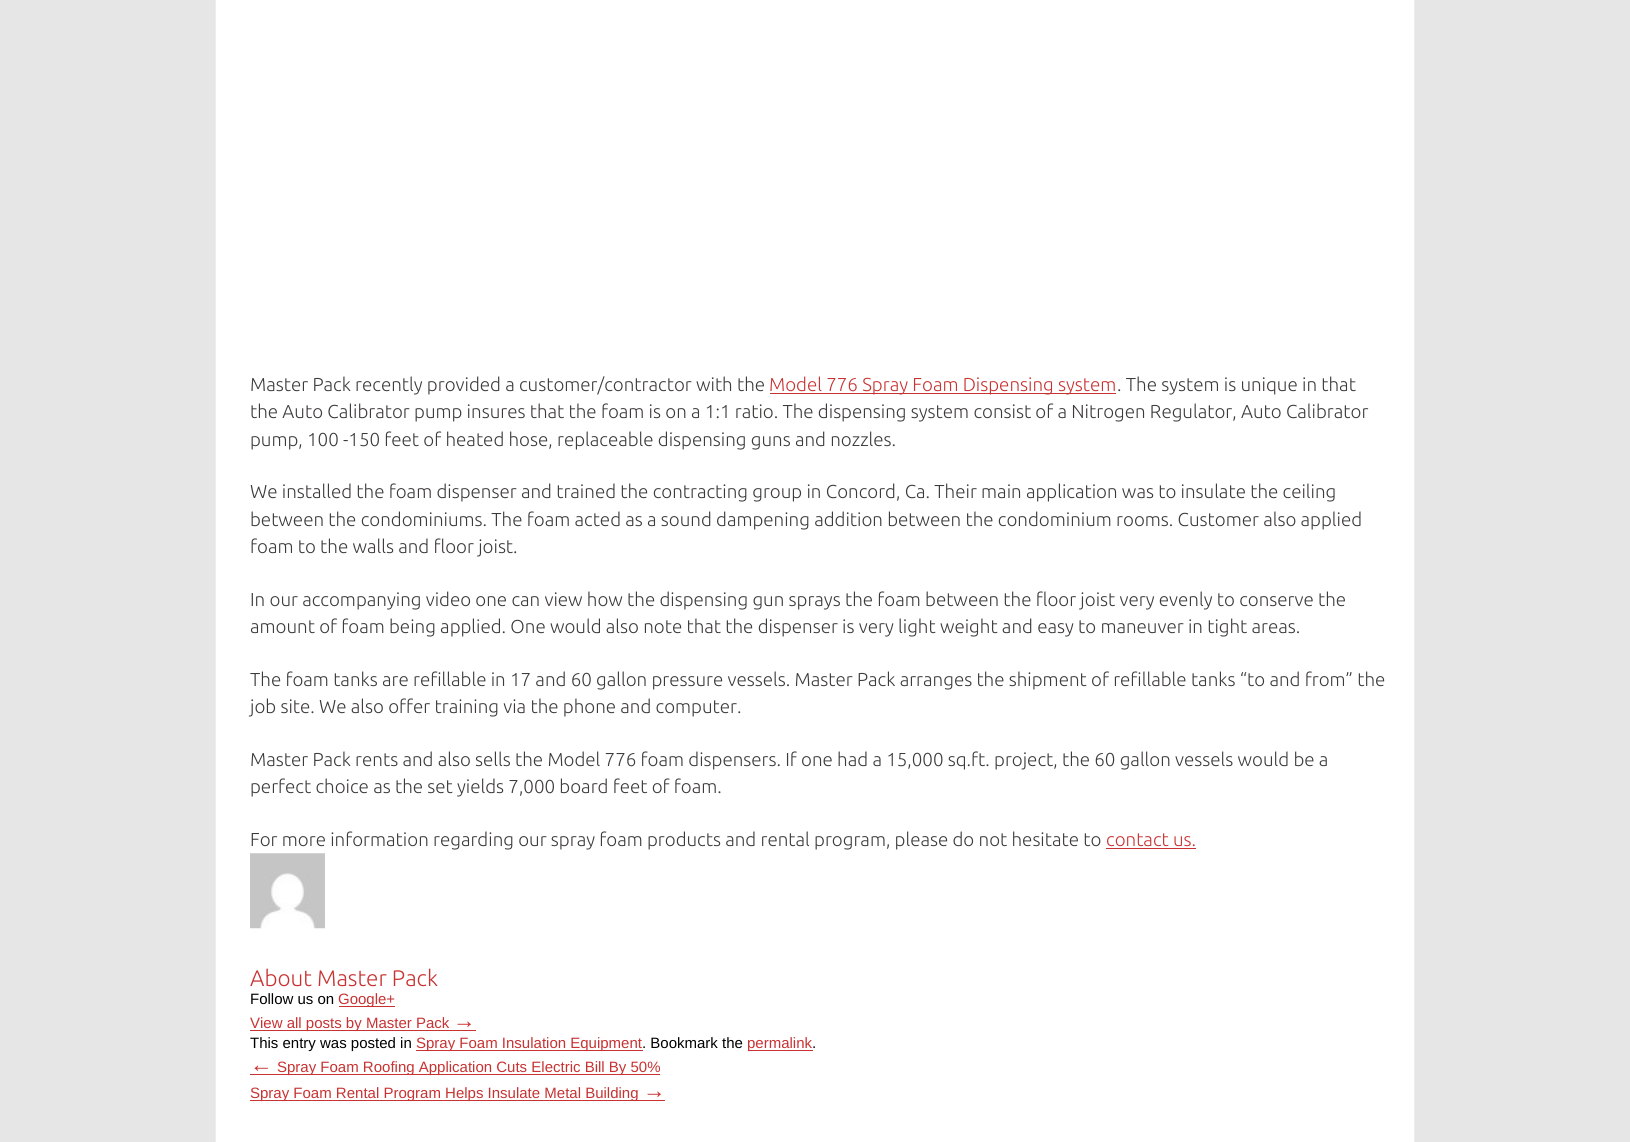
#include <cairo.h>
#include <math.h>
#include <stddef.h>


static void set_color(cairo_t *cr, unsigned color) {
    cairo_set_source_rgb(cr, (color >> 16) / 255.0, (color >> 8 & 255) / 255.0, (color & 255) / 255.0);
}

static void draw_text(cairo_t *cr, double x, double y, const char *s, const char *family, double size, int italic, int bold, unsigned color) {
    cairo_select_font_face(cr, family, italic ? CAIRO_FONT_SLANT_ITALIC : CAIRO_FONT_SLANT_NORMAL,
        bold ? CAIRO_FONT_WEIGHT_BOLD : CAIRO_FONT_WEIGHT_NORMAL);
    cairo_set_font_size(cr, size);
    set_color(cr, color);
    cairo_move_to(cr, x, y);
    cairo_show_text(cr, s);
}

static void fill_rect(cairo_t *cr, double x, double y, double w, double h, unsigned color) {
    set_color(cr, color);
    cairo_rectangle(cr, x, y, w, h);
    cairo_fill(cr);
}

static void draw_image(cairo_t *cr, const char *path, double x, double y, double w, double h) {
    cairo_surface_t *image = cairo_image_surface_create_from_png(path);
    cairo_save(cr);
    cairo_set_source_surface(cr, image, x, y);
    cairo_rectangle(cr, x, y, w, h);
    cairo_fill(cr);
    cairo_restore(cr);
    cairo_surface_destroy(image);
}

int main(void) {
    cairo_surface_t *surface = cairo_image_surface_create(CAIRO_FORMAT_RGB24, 1630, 1142);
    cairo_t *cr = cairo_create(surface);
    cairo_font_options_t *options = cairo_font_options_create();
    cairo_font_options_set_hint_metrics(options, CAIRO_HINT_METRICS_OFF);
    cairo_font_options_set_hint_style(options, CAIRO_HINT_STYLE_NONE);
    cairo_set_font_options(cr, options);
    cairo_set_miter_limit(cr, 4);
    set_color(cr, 0xE6E6E6);
    cairo_paint(cr);
    set_color(cr, 0xFFFFFF);
    cairo_rectangle(cr, 215.5, -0.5, 1199, 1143);
    cairo_fill_preserve(cr);
    set_color(cr, 0xEDEDED);
    cairo_set_line_width(cr, 1);
    cairo_stroke(cr);
    draw_text(cr, 250, 391, "Master Pack recently provided a customer/contractor with the", "Ubuntu Light", 18.75, 0, 0, 0x3D3A3A);
    fill_rect(cr, 770, 393, 346, 1, 0xC83232);
    draw_text(cr, 769, 391, "Model 776 Spray Foam Dispensing system", "Ubuntu Light", 18.75, 0, 0, 0xC83232);
    draw_text(cr, 1117, 391, ". The system is unique in that", "Ubuntu Light", 18.75, 0, 0, 0x3D3A3A);
    draw_text(cr, 250, 418, "the Auto Calibrator pump insures that the foam is on a 1:1 ratio. The dispensing system consist of a Nitrogen Regulator, Auto Calibrator", "Ubuntu Light", 18.75, 0, 0, 0x3D3A3A);
    draw_text(cr, 250, 446, "pump, 100 -150 feet of heated hose, replaceable dispensing guns and nozzles.", "Ubuntu Light", 18.75, 0, 0, 0x3D3A3A);
    draw_text(cr, 250, 498, "We installed the foam dispenser and trained the contracting group in Concord, Ca. Their main application was to insulate the ceiling", "Ubuntu Light", 18.75, 0, 0, 0x3D3A3A);
    draw_text(cr, 250, 526, "between the condominiums. The foam acted as a sound dampening addition between the condominium rooms. Customer also applied", "Ubuntu Light", 18.75, 0, 0, 0x3D3A3A);
    draw_text(cr, 250, 553, "foam to the walls and floor joist.", "Ubuntu Light", 18.75, 0, 0, 0x3D3A3A);
    draw_text(cr, 250, 606, "In our accompanying video one can view how the dispensing gun sprays the foam between the floor joist very evenly to conserve the", "Ubuntu Light", 18.75, 0, 0, 0x3D3A3A);
    draw_text(cr, 250, 633, "amount of foam being applied. One would also note that the dispenser is very light weight and easy to maneuver in tight areas.", "Ubuntu Light", 18.75, 0, 0, 0x3D3A3A);
    draw_text(cr, 250, 686, "The foam tanks are refillable in 17 and 60 gallon pressure vessels. Master Pack arranges the shipment of refillable tanks “to and from” the", "Ubuntu Light", 18.75, 0, 0, 0x3D3A3A);
    draw_text(cr, 250, 713, "job site. We also offer training via the phone and computer.", "Ubuntu Light", 18.75, 0, 0, 0x3D3A3A);
    draw_text(cr, 250, 766, "Master Pack rents and also sells the Model 776 foam dispensers. If one had a 15,000 sq.ft. project, the 60 gallon vessels would be a", "Ubuntu Light", 18.75, 0, 0, 0x3D3A3A);
    draw_text(cr, 250, 793, "perfect choice as the set yields 7,000 board feet of foam.", "Ubuntu Light", 18.75, 0, 0, 0x3D3A3A);
    draw_text(cr, 250, 846, "For more information regarding our spray foam products and rental program, please do not hesitate to", "Ubuntu Light", 18.75, 0, 0, 0x3D3A3A);
    draw_text(cr, 1106, 846, "contact us.", "Ubuntu Light", 18.75, 0, 0, 0xC83232);
    fill_rect(cr, 1106, 848, 90, 1, 0xC83232);
    draw_image(cr, "assets/img1.png", 250, 853, 75, 76);
    draw_text(cr, 250, 986, "About Master Pack", "Ubuntu Light", 22.5, 0, 0, 0xC83232);
    draw_text(cr, 250, 1004, "Follow us on", "Liberation Sans", 15, 0, 0, 0x000000);
    fill_rect(cr, 339, 1006, 56, 1, 0xC83232);
    draw_text(cr, 338, 1004, "Google+", "Liberation Sans", 15, 0, 0, 0xC83232);
    fill_rect(cr, 250, 1030, 226, 1, 0xC83232);
    draw_text(cr, 250, 1028, "View all posts by Master Pack", "Liberation Sans", 15, 0, 0, 0xC83232);
    draw_text(cr, 453, 1028, "→", "Liberation Sans", 22.5, 0, 0, 0xC83232);
    draw_text(cr, 250, 1048, "This entry was posted in", "Liberation Sans", 15, 0, 0, 0x000000);
    fill_rect(cr, 416, 1050, 227, 1, 0xC83232);
    draw_text(cr, 416, 1048, "Spray Foam Insulation Equipment", "Liberation Sans", 15, 0, 0, 0xC83232);
    draw_text(cr, 642, 1048, ". Bookmark the", "Liberation Sans", 15, 0, 0, 0x000000);
    fill_rect(cr, 748, 1050, 65, 1, 0xC83232);
    draw_text(cr, 747, 1048, "permalink", "Liberation Sans", 15, 0, 0, 0xC83232);
    draw_text(cr, 812, 1048, ".", "Liberation Sans", 15, 0, 0, 0x000000);
    draw_text(cr, 250, 1072, "←", "Liberation Sans", 22.5, 0, 0, 0xC83232);
    fill_rect(cr, 250, 1074, 410, 1, 0xC83232);
    draw_text(cr, 277, 1072, "Spray Foam Roofing Application Cuts Electric Bill By 50%", "Liberation Sans", 15, 0, 0, 0xC83232);
    fill_rect(cr, 250, 1100, 415, 1, 0xC83232);
    draw_text(cr, 250, 1098, "Spray Foam Rental Program Helps Insulate Metal Building", "Liberation Sans", 15, 0, 0, 0xC83232);
    draw_text(cr, 643, 1098, "→", "Liberation Sans", 22.5, 0, 0, 0xC83232);
    cairo_surface_write_to_png(surface, "output.png");
    cairo_font_options_destroy(options);
    cairo_destroy(cr);
    cairo_surface_destroy(surface);
    return 0;
}
